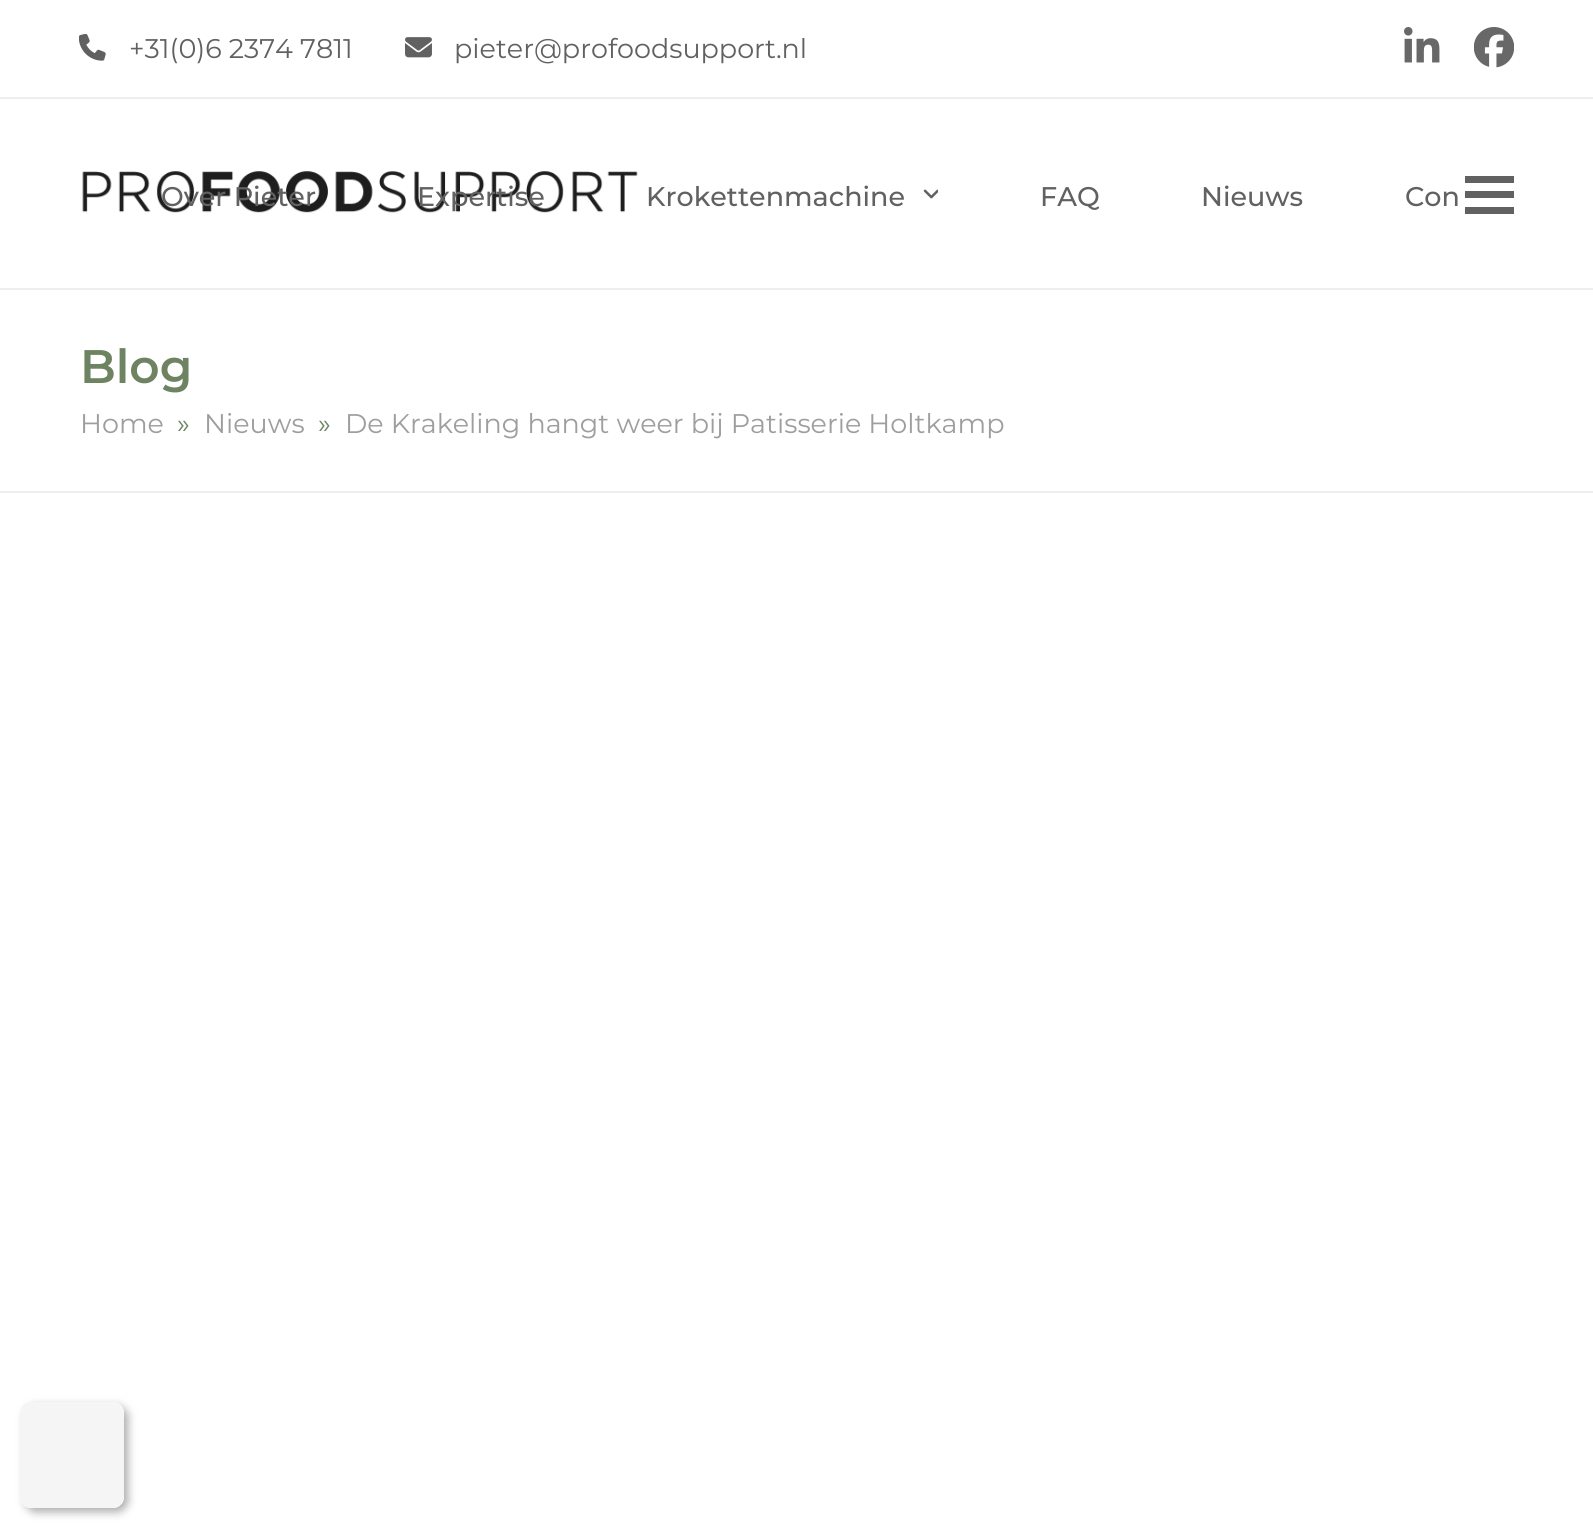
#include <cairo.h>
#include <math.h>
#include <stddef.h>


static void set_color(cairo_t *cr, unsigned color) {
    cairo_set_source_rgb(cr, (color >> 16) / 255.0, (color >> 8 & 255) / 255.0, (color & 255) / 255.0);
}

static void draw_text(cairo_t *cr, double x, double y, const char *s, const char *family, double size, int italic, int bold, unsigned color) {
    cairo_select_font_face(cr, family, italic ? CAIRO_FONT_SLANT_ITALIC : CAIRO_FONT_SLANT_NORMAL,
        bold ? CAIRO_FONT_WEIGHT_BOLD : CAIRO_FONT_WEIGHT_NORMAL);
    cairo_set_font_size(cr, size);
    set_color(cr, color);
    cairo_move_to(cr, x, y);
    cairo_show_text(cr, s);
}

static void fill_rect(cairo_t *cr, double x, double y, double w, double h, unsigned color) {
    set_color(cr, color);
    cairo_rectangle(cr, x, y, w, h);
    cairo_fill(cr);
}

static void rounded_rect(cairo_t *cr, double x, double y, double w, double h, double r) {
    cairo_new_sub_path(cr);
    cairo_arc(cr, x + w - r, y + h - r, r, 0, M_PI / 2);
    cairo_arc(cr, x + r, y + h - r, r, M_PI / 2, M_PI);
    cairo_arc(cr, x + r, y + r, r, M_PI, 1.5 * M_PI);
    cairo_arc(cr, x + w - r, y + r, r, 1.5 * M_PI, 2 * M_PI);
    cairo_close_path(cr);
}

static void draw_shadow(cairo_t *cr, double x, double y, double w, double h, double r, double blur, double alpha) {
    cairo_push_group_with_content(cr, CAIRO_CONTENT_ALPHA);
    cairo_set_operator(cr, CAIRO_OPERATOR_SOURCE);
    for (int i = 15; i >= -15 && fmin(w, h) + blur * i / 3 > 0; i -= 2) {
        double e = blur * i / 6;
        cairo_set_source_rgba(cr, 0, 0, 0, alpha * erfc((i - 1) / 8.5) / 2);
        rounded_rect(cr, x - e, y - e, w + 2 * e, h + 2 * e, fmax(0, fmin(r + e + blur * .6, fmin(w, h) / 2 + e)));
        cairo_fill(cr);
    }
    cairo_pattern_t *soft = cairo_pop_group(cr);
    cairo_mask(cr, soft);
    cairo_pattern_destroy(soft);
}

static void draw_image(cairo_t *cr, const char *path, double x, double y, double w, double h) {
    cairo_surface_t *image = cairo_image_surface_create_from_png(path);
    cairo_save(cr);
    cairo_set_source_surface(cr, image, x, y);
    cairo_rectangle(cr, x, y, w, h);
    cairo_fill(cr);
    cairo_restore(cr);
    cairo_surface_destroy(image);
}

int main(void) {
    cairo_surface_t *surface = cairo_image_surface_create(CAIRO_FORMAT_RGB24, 1593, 1527);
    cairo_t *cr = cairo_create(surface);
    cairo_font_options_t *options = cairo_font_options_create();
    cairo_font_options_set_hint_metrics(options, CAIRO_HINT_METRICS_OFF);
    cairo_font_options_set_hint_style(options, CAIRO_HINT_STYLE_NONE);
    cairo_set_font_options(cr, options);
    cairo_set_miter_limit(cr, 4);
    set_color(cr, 0xFFFFFF);
    cairo_paint(cr);
    fill_rect(cr, 0, 97, 1593, 2, 0xEEEEEE);
    draw_image(cr, "assets/img1.png", 79, 34, 27, 27);
    draw_text(cr, 129, 58, "+31(0)6 2374 7811", "Montserrat", 27, 0, 0, 0x616161);
    draw_image(cr, "assets/img2.png", 405, 37, 27, 21);
    draw_text(cr, 454, 58, "pieter@profoodsupport.nl", "Montserrat", 27, 0, 0, 0x616161);
    draw_image(cr, "assets/img3.png", 1404, 27, 36, 36);
    draw_image(cr, "assets/img4.png", 1474, 27, 40, 41);
    draw_image(cr, "assets/img5.png", 82, 171, 556, 42);
    fill_rect(cr, 1465, 191, 49, 7, 0x616161);
    fill_rect(cr, 1465, 176, 49, 7, 0x616161);
    fill_rect(cr, 1465, 207, 49, 7, 0x616161);
    draw_text(cr, 161, 206, "Over Pieter", "Montserrat Medium", 27, 0, 0, 0x616161);
    draw_text(cr, 417, 206, "Expertise", "Montserrat Medium", 27, 0, 0, 0x616161);
    draw_text(cr, 646, 206, "Krokettenmachine", "Montserrat Medium", 27, 0, 0, 0x616161);
    draw_image(cr, "assets/img6.png", 923, 189, 15, 10);
    draw_text(cr, 1040, 206, "FAQ", "Montserrat Medium", 27, 0, 0, 0x616161);
    draw_text(cr, 1201, 206, "Nieuws", "Montserrat Medium", 27, 0, 0, 0x616161);
    draw_text(cr, 1405, 206, "Con", "Montserrat Medium", 27, 0, 0, 0x616161);
    fill_rect(cr, 0, 288, 1593, 2, 0xEEEEEE);
    fill_rect(cr, 0, 491, 1593, 2, 0xEEEEEE);
    draw_text(cr, 80, 383, "Blog", "Montserrat SemiBold", 47, 0, 0, 0x6D8361);
    draw_text(cr, 80, 433, "Home", "Montserrat", 27, 0, 0, 0x9E9E9E);
    draw_text(cr, 177, 433, "»", "Montserrat", 27, 0, 0, 0x6D8361);
    draw_text(cr, 204, 433, "Nieuws", "Montserrat", 27, 0, 0, 0x9E9E9E);
    draw_text(cr, 318, 433, "»", "Montserrat", 27, 0, 0, 0x6D8361);
    draw_text(cr, 345, 433, "De Krakeling hangt weer bij Patisserie Holtkamp", "Montserrat", 27, 0, 0, 0x9E9E9E);
    cairo_save(cr);
    cairo_set_fill_rule(cr, CAIRO_FILL_RULE_EVEN_ODD);
    cairo_new_path(cr);
    cairo_move_to(cr, 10, 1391);
    cairo_line_to(cr, 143, 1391);
    cairo_line_to(cr, 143, 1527);
    cairo_line_to(cr, 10, 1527);
    cairo_close_path(cr);
    cairo_move_to(cr, 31, 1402);
    cairo_line_to(cr, 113, 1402);
    cairo_curve_to(cr, 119, 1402, 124, 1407, 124, 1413);
    cairo_line_to(cr, 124, 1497);
    cairo_curve_to(cr, 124, 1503, 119, 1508, 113, 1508);
    cairo_line_to(cr, 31, 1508);
    cairo_curve_to(cr, 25, 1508, 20, 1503, 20, 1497);
    cairo_line_to(cr, 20, 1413);
    cairo_curve_to(cr, 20, 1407, 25, 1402, 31, 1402);
    cairo_close_path(cr);
    cairo_clip(cr);
    set_color(cr, 0x4D4D4D);
    draw_shadow(cr, 25, 1406, 103, 106, 11, 4.5, 0.47);
    cairo_restore(cr);
    cairo_set_source_rgba(cr, 0.961, 0.961, 0.961, 0.99);
    rounded_rect(cr, 20, 1402, 104, 106, 11);
    cairo_fill(cr);
    cairo_surface_write_to_png(surface, "output.png");
    cairo_font_options_destroy(options);
    cairo_destroy(cr);
    cairo_surface_destroy(surface);
    return 0;
}
